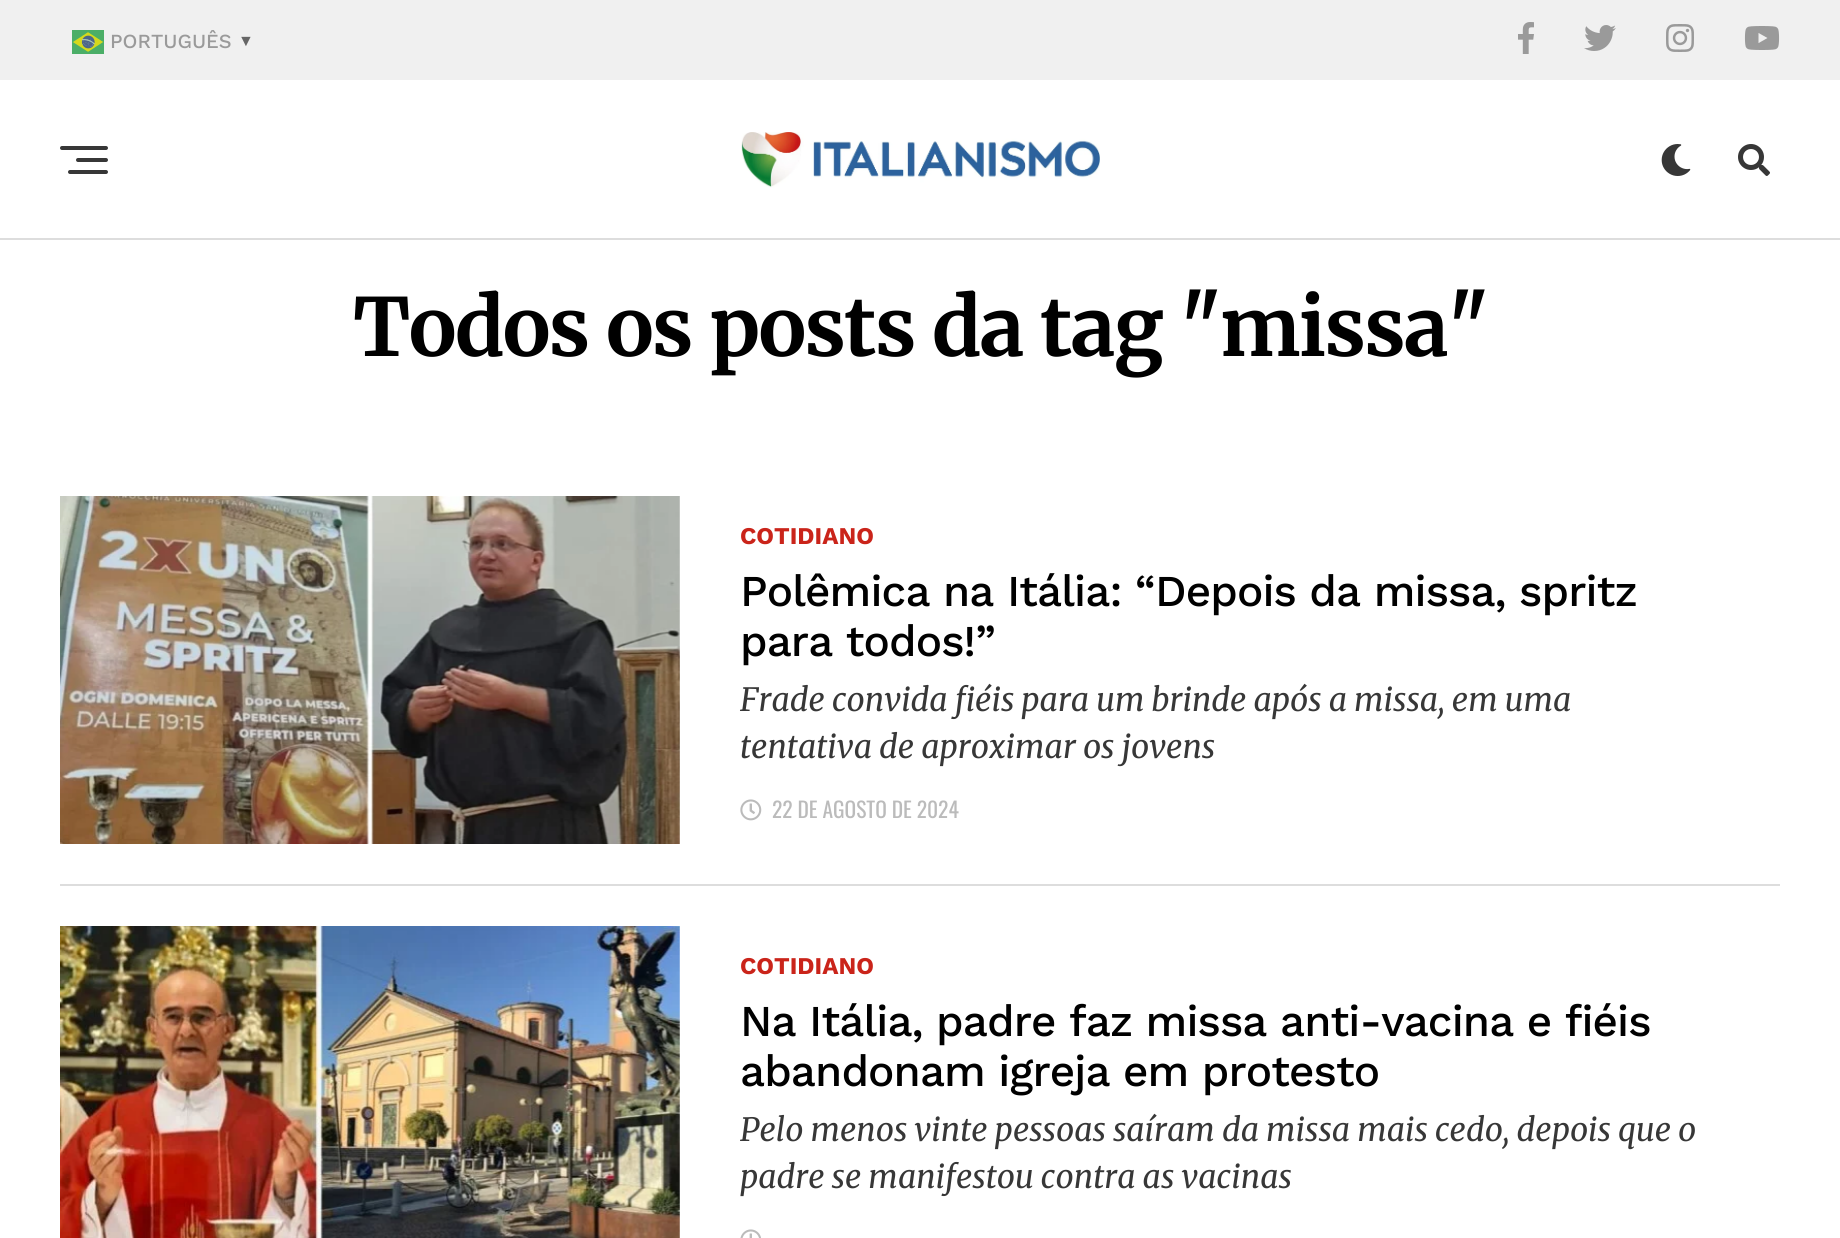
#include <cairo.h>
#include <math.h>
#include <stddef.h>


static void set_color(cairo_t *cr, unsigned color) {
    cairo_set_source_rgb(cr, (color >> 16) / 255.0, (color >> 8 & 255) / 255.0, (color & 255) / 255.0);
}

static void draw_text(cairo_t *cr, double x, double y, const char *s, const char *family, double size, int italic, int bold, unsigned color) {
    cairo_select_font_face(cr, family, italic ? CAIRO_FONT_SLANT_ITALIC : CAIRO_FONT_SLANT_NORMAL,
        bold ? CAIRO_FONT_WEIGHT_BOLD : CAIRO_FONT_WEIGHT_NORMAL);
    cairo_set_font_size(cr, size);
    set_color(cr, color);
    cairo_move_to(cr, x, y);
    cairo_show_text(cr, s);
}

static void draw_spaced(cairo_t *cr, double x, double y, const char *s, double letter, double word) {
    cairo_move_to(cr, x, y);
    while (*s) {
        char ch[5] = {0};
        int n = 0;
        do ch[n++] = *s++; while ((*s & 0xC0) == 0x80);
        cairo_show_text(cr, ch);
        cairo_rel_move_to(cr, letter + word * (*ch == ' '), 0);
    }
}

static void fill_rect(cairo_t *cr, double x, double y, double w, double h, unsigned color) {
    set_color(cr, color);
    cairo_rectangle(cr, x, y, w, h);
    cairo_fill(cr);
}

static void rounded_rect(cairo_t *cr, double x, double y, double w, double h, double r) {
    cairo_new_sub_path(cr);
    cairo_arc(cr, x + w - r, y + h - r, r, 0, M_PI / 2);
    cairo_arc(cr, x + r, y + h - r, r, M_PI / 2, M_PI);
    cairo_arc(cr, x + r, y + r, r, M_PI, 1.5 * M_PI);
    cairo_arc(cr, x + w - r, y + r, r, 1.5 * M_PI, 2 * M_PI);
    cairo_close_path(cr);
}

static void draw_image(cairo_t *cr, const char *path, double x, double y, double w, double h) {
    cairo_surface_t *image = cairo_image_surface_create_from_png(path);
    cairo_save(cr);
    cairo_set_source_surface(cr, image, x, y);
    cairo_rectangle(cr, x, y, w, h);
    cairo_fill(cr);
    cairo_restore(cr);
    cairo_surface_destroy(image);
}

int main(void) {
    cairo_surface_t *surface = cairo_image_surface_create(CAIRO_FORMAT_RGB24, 1840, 1238);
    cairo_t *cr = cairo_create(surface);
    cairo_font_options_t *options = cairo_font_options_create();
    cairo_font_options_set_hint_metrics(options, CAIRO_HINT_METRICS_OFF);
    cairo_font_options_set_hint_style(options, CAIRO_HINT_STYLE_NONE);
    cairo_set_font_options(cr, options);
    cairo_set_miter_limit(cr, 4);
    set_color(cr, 0xFFFFFF);
    cairo_paint(cr);
    fill_rect(cr, 0, 0, 1840, 80, 0xF0F0F0);
    draw_image(cr, "assets/img1.png", 72, 30, 32, 24);
    draw_text(cr, 110, 48, "PORTUGUÊS", "Work Sans Medium", 20, 0, 0, 0x9A9A9A);
    draw_text(cr, 238, 46, "▼", "Liberation Sans", 16, 0, 1, 0x666666);
    draw_image(cr, "assets/img2.png", 1518, 22, 16, 32);
    draw_image(cr, "assets/img3.png", 1584, 25, 32, 26);
    draw_image(cr, "assets/img4.png", 1666, 24, 28, 28);
    draw_image(cr, "assets/img5.png", 1744, 26, 36, 24);
    fill_rect(cr, 0, 238, 1840, 2, 0xDDDDDD);
    set_color(cr, 0x373737);
    rounded_rect(cr, 60, 146, 48, 4, 2);
    cairo_fill(cr);
    rounded_rect(cr, 76, 158, 32, 4, 2);
    cairo_fill(cr);
    rounded_rect(cr, 68, 170, 40, 4, 2);
    cairo_fill(cr);
    draw_image(cr, "assets/img6.png", 741, 132, 359, 56);
    draw_image(cr, "assets/img7.png", 1661, 144, 30, 32);
    draw_image(cr, "assets/img8.png", 1738, 144, 32, 32);
    cairo_select_font_face(cr, "Merriweather", CAIRO_FONT_SLANT_NORMAL, CAIRO_FONT_WEIGHT_BOLD);
    cairo_set_font_size(cr, 80);
    set_color(cr, 0x000000);
    draw_spaced(cr, 353, 356, "Todos os posts da tag \"missa\"", -1.6, 0);
    draw_image(cr, "assets/img9.png", 60, 496, 620, 348);
    draw_text(cr, 740, 544, "COTIDIANO", "Work Sans", 24, 0, 1, 0xCA241A);
    cairo_select_font_face(cr, "Work Sans Medium", CAIRO_FONT_SLANT_NORMAL, CAIRO_FONT_WEIGHT_NORMAL);
    cairo_set_font_size(cr, 44);
    set_color(cr, 0x000000);
    draw_spaced(cr, 740, 606, "Polêmica na Itália: “Depois da missa, spritz", -0.9, 0);
    draw_spaced(cr, 740, 656, "para todos!”", -0.9, 0);
    draw_text(cr, 740, 711, "Frade convida fiéis para um brinde após a missa, em uma", "Merriweather", 32, 1, 0, 0x373737);
    draw_text(cr, 740, 758, "tentativa de aproximar os jovens", "Merriweather", 32, 1, 0, 0x373737);
    draw_image(cr, "assets/img10.png", 740, 799, 22, 22);
    draw_text(cr, 772, 818, "22 DE AGOSTO DE 2024", "Oswald", 21.5, 0, 0, 0xBBBBBB);
    fill_rect(cr, 60, 884, 1720, 2, 0xDDDDDD);
    draw_image(cr, "assets/img11.png", 60, 926, 620, 312);
    draw_text(cr, 740, 974, "COTIDIANO", "Work Sans", 24, 0, 1, 0xCA241A);
    cairo_select_font_face(cr, "Work Sans Medium", CAIRO_FONT_SLANT_NORMAL, CAIRO_FONT_WEIGHT_NORMAL);
    cairo_set_font_size(cr, 44);
    set_color(cr, 0x000000);
    draw_spaced(cr, 740, 1036, "Na Itália, padre faz missa anti-vacina e fiéis", -0.9, 0);
    draw_spaced(cr, 740, 1086, "abandonam igreja em protesto", -0.9, 0);
    draw_text(cr, 740, 1141, "Pelo menos vinte pessoas saíram da missa mais cedo, depois que o", "Merriweather", 32, 1, 0, 0x373737);
    draw_text(cr, 740, 1188, "padre se manifestou contra as vacinas", "Merriweather", 32, 1, 0, 0x373737);
    draw_image(cr, "assets/img12.png", 740, 1229, 21, 9);
    cairo_surface_write_to_png(surface, "output.png");
    cairo_font_options_destroy(options);
    cairo_destroy(cr);
    cairo_surface_destroy(surface);
    return 0;
}
